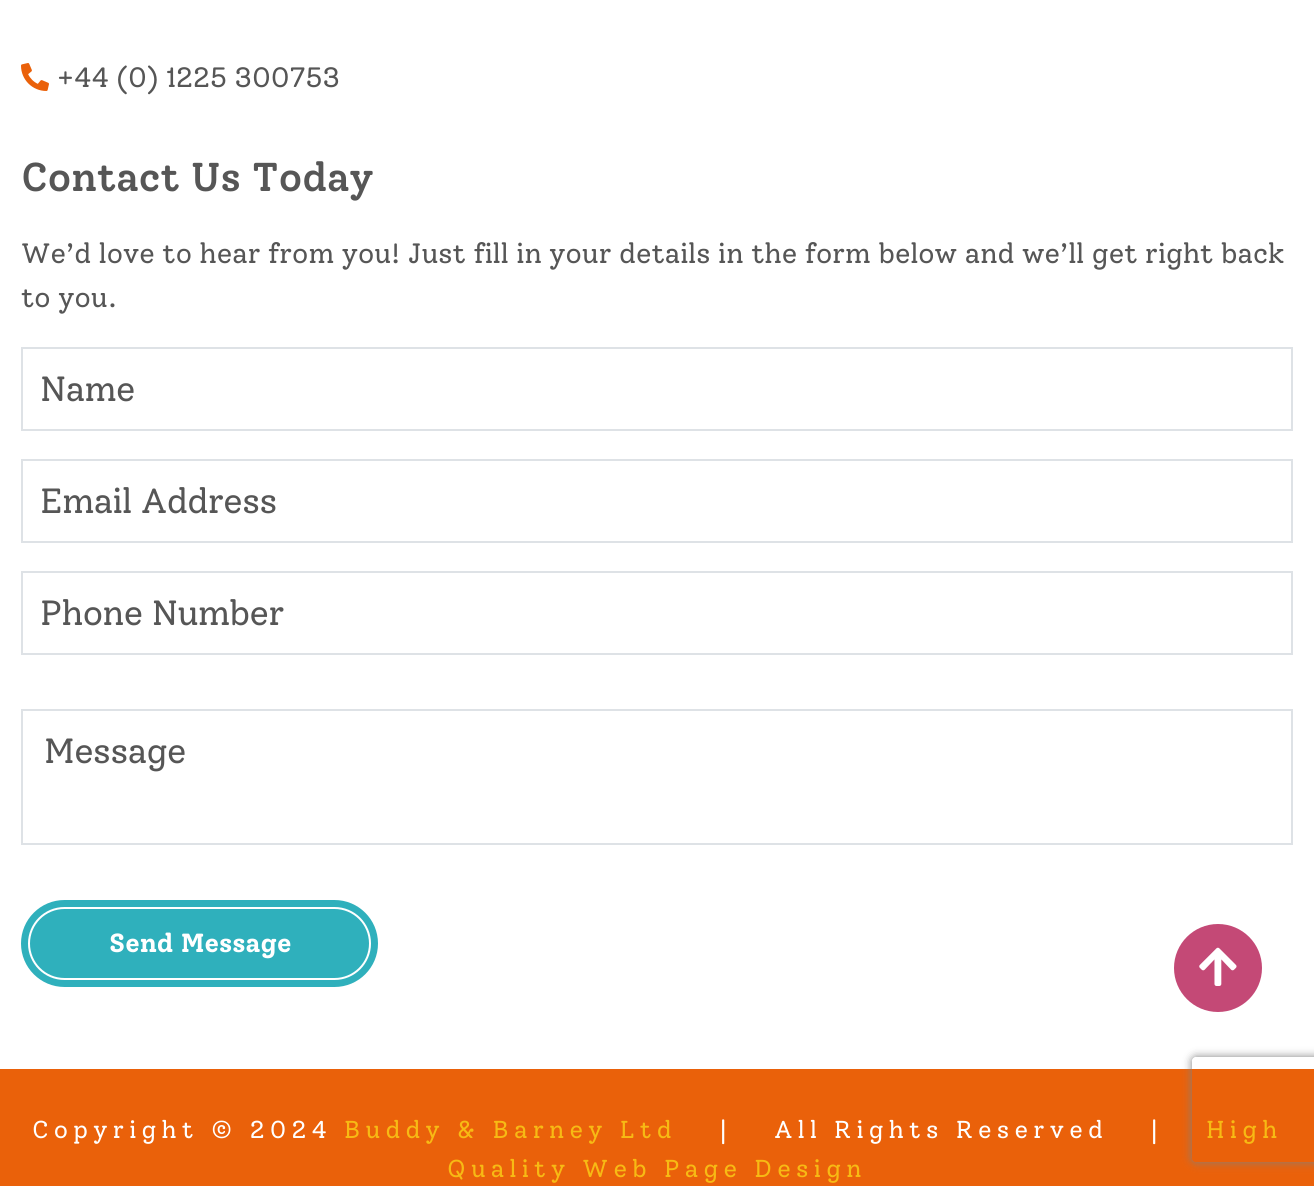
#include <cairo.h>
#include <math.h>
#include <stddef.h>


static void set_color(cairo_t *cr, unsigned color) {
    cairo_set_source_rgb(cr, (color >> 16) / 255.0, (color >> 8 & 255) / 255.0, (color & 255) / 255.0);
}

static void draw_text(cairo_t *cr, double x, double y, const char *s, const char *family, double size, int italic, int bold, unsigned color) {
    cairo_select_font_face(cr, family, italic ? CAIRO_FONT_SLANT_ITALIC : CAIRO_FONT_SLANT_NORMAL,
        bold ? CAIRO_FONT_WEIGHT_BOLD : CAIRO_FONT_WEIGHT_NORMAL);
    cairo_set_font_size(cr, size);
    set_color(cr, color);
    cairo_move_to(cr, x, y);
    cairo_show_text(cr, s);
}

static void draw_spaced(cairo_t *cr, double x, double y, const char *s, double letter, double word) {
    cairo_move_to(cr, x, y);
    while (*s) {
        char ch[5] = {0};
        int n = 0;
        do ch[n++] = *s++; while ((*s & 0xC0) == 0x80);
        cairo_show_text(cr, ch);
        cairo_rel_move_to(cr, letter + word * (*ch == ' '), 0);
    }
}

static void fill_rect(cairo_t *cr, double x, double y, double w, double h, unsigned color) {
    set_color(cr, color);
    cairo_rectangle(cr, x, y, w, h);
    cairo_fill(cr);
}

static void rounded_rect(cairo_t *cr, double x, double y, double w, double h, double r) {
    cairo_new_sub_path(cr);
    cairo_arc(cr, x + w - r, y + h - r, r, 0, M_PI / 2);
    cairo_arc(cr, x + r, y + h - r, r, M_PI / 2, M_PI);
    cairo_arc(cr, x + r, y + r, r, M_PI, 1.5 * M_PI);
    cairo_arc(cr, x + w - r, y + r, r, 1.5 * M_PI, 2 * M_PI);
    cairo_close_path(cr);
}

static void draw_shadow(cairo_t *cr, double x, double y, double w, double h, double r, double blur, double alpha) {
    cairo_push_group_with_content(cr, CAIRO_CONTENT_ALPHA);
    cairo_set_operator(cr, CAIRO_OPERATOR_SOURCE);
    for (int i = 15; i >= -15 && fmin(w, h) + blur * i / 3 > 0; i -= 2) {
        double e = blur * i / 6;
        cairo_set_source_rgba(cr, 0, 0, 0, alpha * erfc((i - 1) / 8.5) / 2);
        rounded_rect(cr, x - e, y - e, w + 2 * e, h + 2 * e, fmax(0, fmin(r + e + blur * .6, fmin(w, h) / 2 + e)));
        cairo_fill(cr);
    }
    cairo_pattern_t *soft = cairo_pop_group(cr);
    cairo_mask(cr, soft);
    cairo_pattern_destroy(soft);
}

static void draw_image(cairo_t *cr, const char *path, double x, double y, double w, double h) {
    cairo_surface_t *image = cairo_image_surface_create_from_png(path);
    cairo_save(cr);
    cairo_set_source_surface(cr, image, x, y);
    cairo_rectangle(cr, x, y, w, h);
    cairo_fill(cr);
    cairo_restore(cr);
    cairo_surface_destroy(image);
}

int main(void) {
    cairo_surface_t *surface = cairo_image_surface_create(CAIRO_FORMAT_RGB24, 1314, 1186);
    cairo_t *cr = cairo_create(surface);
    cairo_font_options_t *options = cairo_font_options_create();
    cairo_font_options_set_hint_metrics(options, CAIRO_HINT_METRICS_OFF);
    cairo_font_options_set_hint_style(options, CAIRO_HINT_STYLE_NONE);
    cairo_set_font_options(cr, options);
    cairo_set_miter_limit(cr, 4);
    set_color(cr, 0xFFFFFF);
    cairo_paint(cr);
    draw_image(cr, "assets/img1.png", 21, 63, 28, 28);
    draw_text(cr, 57, 87, "+44 (0) 1225 300753", "Solway", 28, 0, 0, 0x565656);
    draw_text(cr, 21, 191, "Contact Us Today", "Solway Medium", 40.25, 0, 0, 0x565656);
    draw_text(cr, 21, 263, "We’d love to hear from you! Just fill in your details in the form below and we’ll get right back", "Solway", 28, 0, 0, 0x565656);
    draw_text(cr, 21, 307, "to you.", "Solway", 28, 0, 0, 0x565656);
    cairo_rectangle(cr, 22, 348, 1270, 82);
    set_color(cr, 0xDEE2E6);
    cairo_stroke(cr);
    cairo_set_font_size(cr, 35);
    set_color(cr, 0x565656);
    draw_spaced(cr, 40, 401, "Name", -0.5, 0);
    cairo_rectangle(cr, 22, 460, 1270, 82);
    set_color(cr, 0xDEE2E6);
    cairo_stroke(cr);
    set_color(cr, 0x565656);
    draw_spaced(cr, 40, 513, "Email Address", -0.5, 0);
    cairo_rectangle(cr, 22, 572, 1270, 82);
    set_color(cr, 0xDEE2E6);
    cairo_stroke(cr);
    set_color(cr, 0x565656);
    draw_spaced(cr, 40, 625, "Phone Number", -0.5, 0);
    cairo_rectangle(cr, 22, 710, 1270, 134);
    set_color(cr, 0xDEE2E6);
    cairo_stroke(cr);
    set_color(cr, 0x565656);
    draw_spaced(cr, 44, 763, "Message", -0.5, 0);
    set_color(cr, 0x2FB0BC);
    rounded_rect(cr, 21, 900, 357, 87, 43.5);
    cairo_fill(cr);
    rounded_rect(cr, 29, 908, 341, 71, 35.5);
    set_color(cr, 0xFFFFFF);
    cairo_stroke(cr);
    draw_text(cr, 109, 952, "Send Message", "Solway", 26.25, 0, 1, 0xFFFFFF);
    fill_rect(cr, 0, 1069, 1314, 117, 0xEA610A);
    cairo_select_font_face(cr, "Solway", CAIRO_FONT_SLANT_NORMAL, CAIRO_FONT_WEIGHT_NORMAL);
    cairo_set_font_size(cr, 24.5);
    set_color(cr, 0xFFFFFF);
    draw_spaced(cr, 32, 1138, "Copyright © 2024", 5.25, 0);
    set_color(cr, 0xF7BA14);
    draw_spaced(cr, 344, 1138, "Buddy & Barney Ltd", 5.25, 0);
    set_color(cr, 0xFFFFFF);
    draw_spaced(cr, 719, 1138, "|", 5.25, 0);
    draw_spaced(cr, 774, 1138, "All Rights Reserved", 5.25, 0);
    draw_spaced(cr, 1150, 1138, "|", 5.25, 0);
    set_color(cr, 0xF7BA14);
    draw_spaced(cr, 1206, 1138, "High", 5.25, 0);
    draw_spaced(cr, 447, 1177, "Quality Web Page Design", 5.25, 0);
    set_color(cr, 0xC44976);
    cairo_new_path(cr);
    cairo_arc(cr, 1218, 968, 44, 0, 2 * M_PI);
    cairo_fill(cr);
    draw_image(cr, "assets/img2.png", 1199, 947, 38, 39);
    cairo_save(cr);
    cairo_set_fill_rule(cr, CAIRO_FILL_RULE_EVEN_ODD);
    cairo_new_path(cr);
    cairo_move_to(cr, 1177, 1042);
    cairo_line_to(cr, 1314, 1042);
    cairo_line_to(cr, 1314, 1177);
    cairo_line_to(cr, 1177, 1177);
    cairo_close_path(cr);
    cairo_move_to(cr, 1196, 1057);
    cairo_line_to(cr, 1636, 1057);
    cairo_curve_to(cr, 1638, 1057, 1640, 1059, 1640, 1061);
    cairo_line_to(cr, 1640, 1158);
    cairo_curve_to(cr, 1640, 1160, 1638, 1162, 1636, 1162);
    cairo_line_to(cr, 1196, 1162);
    cairo_curve_to(cr, 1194, 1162, 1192, 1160, 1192, 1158);
    cairo_line_to(cr, 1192, 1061);
    cairo_curve_to(cr, 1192, 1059, 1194, 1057, 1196, 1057);
    cairo_close_path(cr);
    cairo_clip(cr);
    set_color(cr, 0x808080);
    draw_shadow(cr, 1192, 1057, 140, 105, 4, 4.5, 1);
    cairo_restore(cr);
    cairo_surface_write_to_png(surface, "output.png");
    cairo_font_options_destroy(options);
    cairo_destroy(cr);
    cairo_surface_destroy(surface);
    return 0;
}
